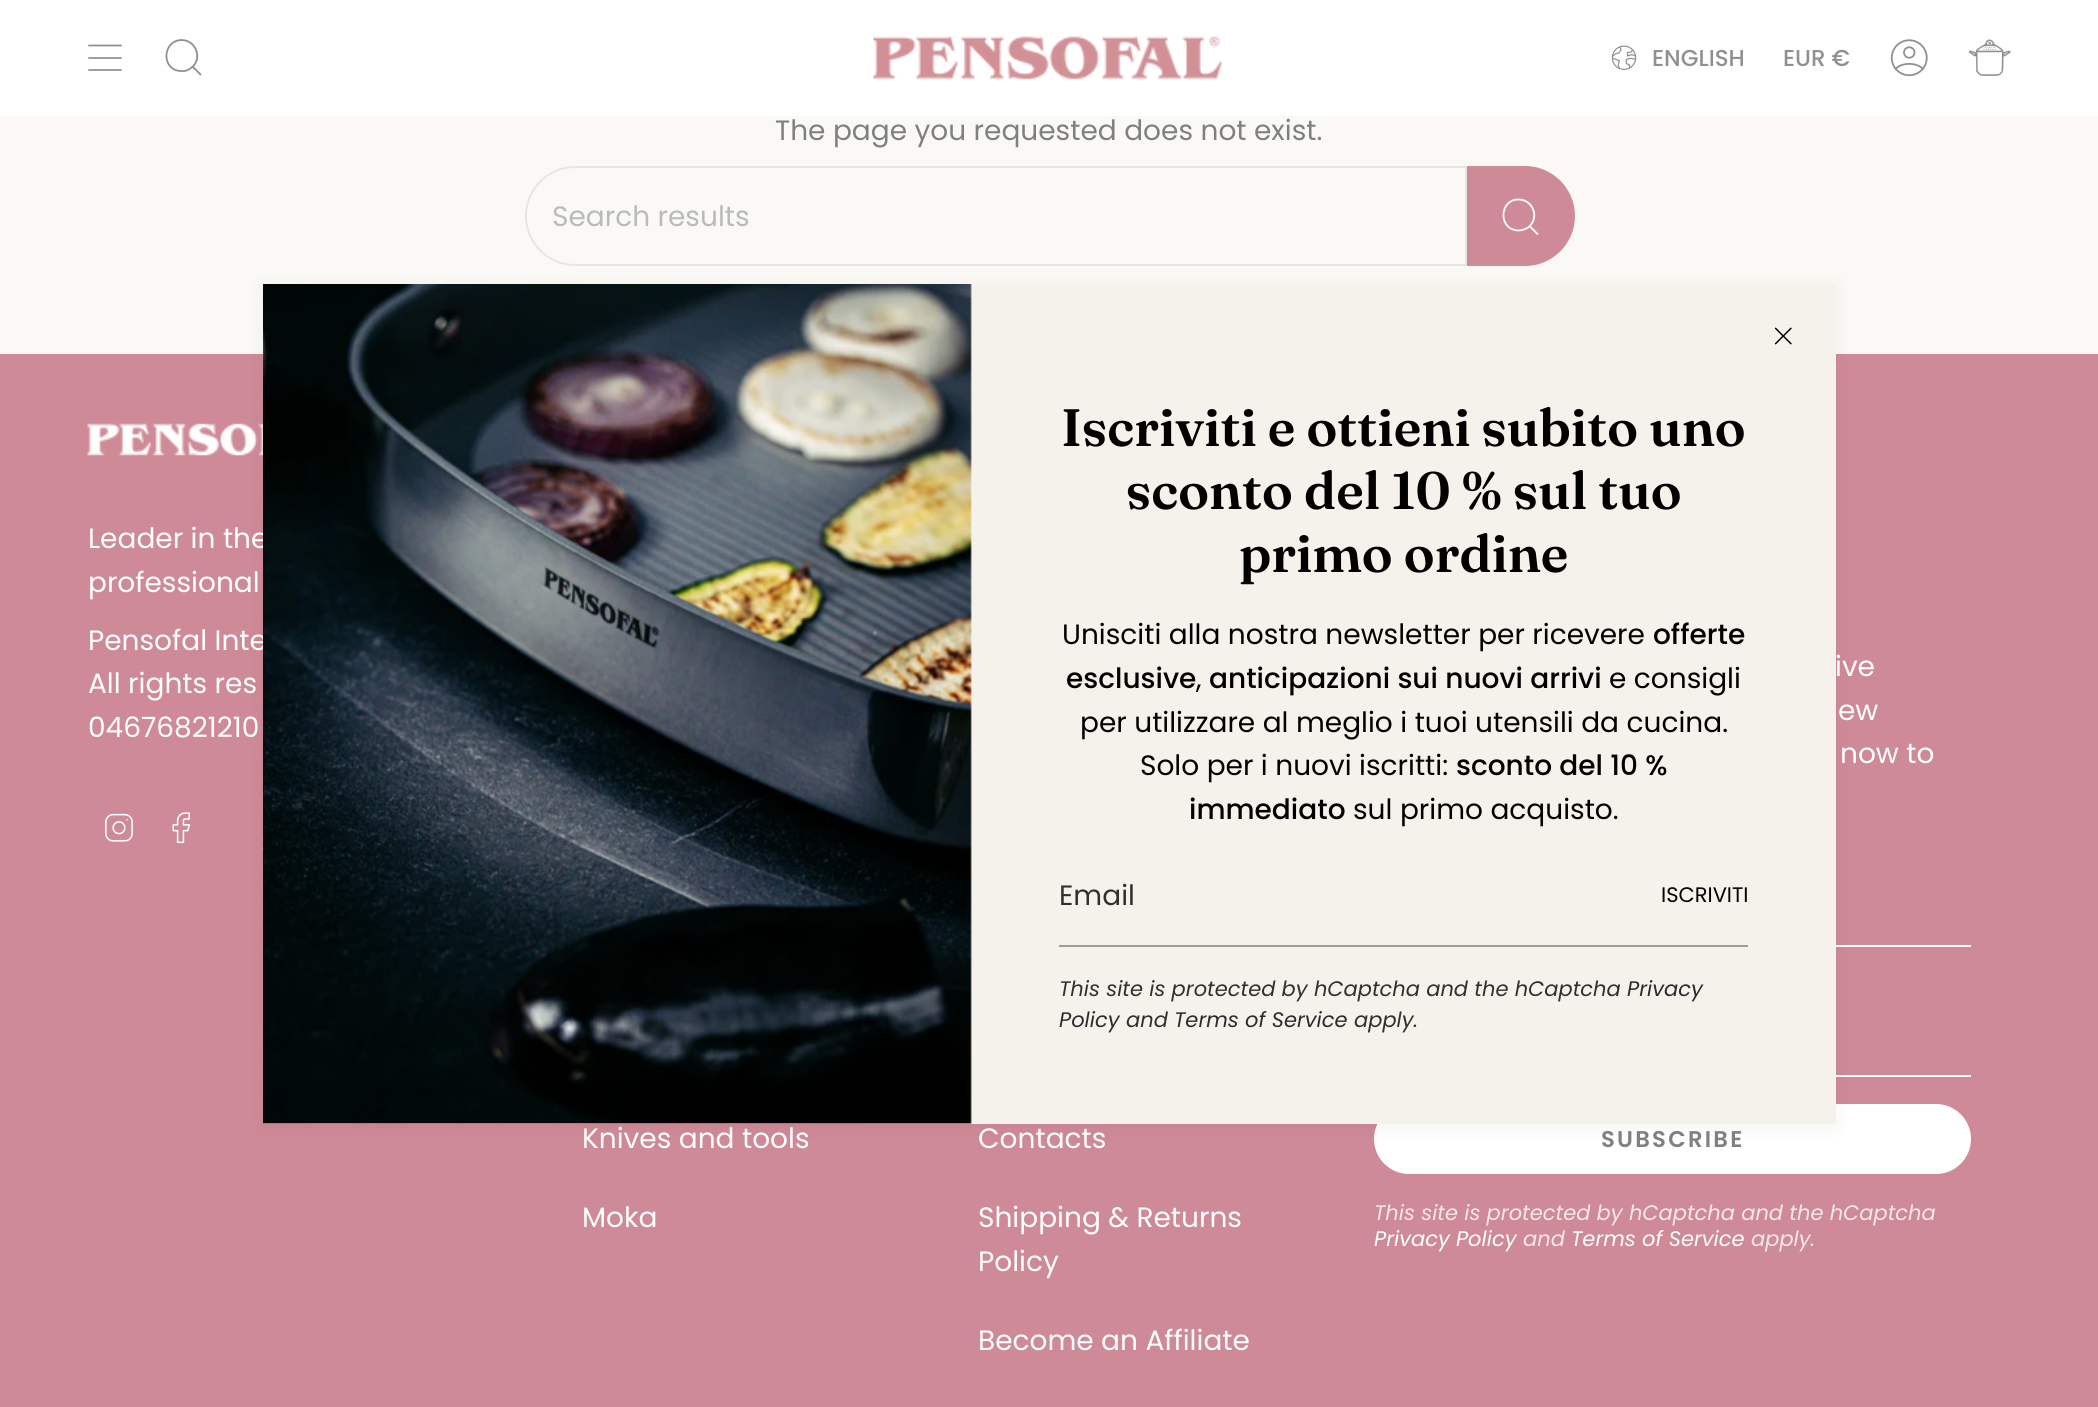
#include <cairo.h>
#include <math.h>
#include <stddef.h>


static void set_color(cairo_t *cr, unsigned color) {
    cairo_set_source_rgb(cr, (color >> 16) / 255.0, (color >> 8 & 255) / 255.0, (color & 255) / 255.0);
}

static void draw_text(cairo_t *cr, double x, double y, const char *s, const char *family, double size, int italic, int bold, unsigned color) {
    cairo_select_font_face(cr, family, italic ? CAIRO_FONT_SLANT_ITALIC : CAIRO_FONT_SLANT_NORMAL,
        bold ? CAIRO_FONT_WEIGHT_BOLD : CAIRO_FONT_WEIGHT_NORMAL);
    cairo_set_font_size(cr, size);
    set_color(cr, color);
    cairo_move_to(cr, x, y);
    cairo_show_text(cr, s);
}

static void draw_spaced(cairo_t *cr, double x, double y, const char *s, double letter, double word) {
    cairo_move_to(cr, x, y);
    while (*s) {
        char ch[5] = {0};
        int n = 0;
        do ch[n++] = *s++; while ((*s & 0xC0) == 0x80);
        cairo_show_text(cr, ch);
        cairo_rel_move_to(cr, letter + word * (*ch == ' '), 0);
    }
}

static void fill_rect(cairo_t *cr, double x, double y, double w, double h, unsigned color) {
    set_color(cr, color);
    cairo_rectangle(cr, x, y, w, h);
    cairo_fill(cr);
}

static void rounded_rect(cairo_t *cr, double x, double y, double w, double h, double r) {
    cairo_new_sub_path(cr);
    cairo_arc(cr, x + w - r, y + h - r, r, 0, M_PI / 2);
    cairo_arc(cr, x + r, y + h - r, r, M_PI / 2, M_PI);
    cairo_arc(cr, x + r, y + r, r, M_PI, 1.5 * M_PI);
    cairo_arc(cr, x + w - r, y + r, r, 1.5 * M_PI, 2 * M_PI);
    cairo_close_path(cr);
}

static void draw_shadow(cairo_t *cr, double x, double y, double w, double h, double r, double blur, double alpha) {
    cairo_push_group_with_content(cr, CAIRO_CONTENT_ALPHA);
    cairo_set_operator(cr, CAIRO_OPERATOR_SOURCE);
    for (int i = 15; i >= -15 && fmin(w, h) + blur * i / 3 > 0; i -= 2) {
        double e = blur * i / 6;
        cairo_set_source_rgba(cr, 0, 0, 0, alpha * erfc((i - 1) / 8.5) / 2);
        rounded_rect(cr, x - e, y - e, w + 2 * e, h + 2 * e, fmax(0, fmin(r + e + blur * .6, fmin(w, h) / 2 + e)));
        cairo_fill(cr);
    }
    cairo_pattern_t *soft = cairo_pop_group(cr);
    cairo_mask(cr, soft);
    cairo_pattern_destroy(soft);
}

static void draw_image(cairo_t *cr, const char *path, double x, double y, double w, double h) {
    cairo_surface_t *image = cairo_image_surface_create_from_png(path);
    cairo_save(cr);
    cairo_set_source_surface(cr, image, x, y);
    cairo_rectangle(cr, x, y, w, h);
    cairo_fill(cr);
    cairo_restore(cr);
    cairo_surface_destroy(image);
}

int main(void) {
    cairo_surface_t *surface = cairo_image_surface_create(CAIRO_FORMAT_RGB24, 2098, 1407);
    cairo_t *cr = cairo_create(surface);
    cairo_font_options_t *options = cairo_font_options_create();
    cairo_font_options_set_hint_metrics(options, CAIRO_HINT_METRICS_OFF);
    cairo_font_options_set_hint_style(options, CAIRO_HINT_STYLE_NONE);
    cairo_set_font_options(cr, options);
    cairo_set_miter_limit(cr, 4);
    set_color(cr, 0xFAF9F6);
    cairo_paint(cr);
    fill_rect(cr, 0, 0, 2098, 116, 0xFFFFFF);
    cairo_new_path(cr);
    cairo_move_to(cr, 89, 45.5);
    cairo_line_to(cr, 121, 45.5);
    cairo_move_to(cr, 89, 58);
    cairo_line_to(cr, 121, 58);
    cairo_move_to(cr, 89, 70);
    cairo_line_to(cr, 121, 70);
    set_color(cr, 0x909090);
    cairo_set_line_width(cr, 1.8);
    cairo_set_line_cap(cr, CAIRO_LINE_CAP_ROUND);
    cairo_set_line_join(cr, CAIRO_LINE_JOIN_ROUND);
    cairo_stroke(cr);
    cairo_new_path(cr);
    cairo_move_to(cr, 181.5, 40);
    cairo_curve_to(cr, 196.5, 40, 203, 59.5, 191, 68);
    cairo_curve_to(cr, 188, 70.5, 184.5, 71.5, 181, 71);
    cairo_curve_to(cr, 161, 70.5, 162, 40.5, 181.5, 40);
    cairo_close_path(cr);
    cairo_move_to(cr, 192.5, 66.5);
    cairo_line_to(cr, 201, 75);
    cairo_set_line_cap(cr, CAIRO_LINE_CAP_BUTT);
    cairo_set_line_join(cr, CAIRO_LINE_JOIN_MITER);
    cairo_stroke(cr);
    draw_image(cr, "assets/img1.png", 873, 36, 349, 44);
    draw_image(cr, "assets/img2.png", 1611, 45, 26, 25);
    draw_text(cr, 1652, 66, "ENGLISH", "Poppins Medium", 23, 0, 0, 0x909090);
    draw_text(cr, 1783, 66, "EUR €", "Poppins Medium", 23, 0, 0, 0x909090);
    draw_image(cr, "assets/img3.png", 1890, 39, 38, 38);
    draw_image(cr, "assets/img4.png", 1969, 39, 42, 37);
    draw_text(cr, 775, 140, "The page you requested does not exist.", "Poppins", 28, 0, 0, 0x808080);
    cairo_new_path(cr);
    cairo_move_to(cr, 575, 167);
    cairo_line_to(cr, 1466, 167);
    cairo_line_to(cr, 1466, 265);
    cairo_line_to(cr, 575, 265);
    cairo_curve_to(cr, 548, 265, 526, 243, 526, 216);
    cairo_curve_to(cr, 526, 189, 548, 167, 575, 167);
    cairo_close_path(cr);
    set_color(cr, 0xE8E6E2);
    cairo_set_line_width(cr, 2);
    cairo_stroke(cr);
    draw_text(cr, 552, 226, "Search results", "Poppins", 28, 0, 0, 0xBABABA);
    set_color(cr, 0xCF8A97);
    cairo_new_path(cr);
    cairo_move_to(cr, 1468, 167);
    cairo_line_to(cr, 1525, 167);
    cairo_curve_to(cr, 1552, 167, 1574, 189, 1574, 216);
    cairo_curve_to(cr, 1574, 243, 1552, 265, 1525, 265);
    cairo_line_to(cr, 1468, 265);
    cairo_close_path(cr);
    cairo_fill_preserve(cr);
    cairo_stroke(cr);
    cairo_new_path(cr);
    cairo_move_to(cr, 1518.5, 199.5);
    cairo_curve_to(cr, 1533.5, 199.5, 1540, 218.5, 1528, 227.5);
    cairo_curve_to(cr, 1525, 229.5, 1521.5, 230.5, 1518, 230.5);
    cairo_curve_to(cr, 1498, 229.5, 1499, 199.5, 1518.5, 199.5);
    cairo_close_path(cr);
    cairo_move_to(cr, 1529.5, 226);
    cairo_line_to(cr, 1538, 234.5);
    set_color(cr, 0xFFFFFF);
    cairo_set_line_width(cr, 1.8);
    cairo_stroke(cr);
    fill_rect(cr, 0, 354, 2098, 1053, 0xCF8A97);
    draw_image(cr, "assets/img7.png", 87, 423, 176, 33);
    fill_rect(cr, 1836, 945, 135, 2, 0xFFFFFF);
    fill_rect(cr, 1836, 1075, 135, 2, 0xFFFFFF);
    rounded_rect(cr, 1375, 1105, 595, 68, 34);
    cairo_fill_preserve(cr);
    cairo_set_line_width(cr, 2);
    cairo_stroke(cr);
    set_color(cr, 0x000000);
    draw_shadow(cr, 263, 287, 1573, 840, 0, 9, 0.05);
    draw_text(cr, 88, 548, "Leader in the", "Poppins", 28, 0, 0, 0xFFFFFF);
    draw_text(cr, 88, 650, "Pensofal Inte", "Poppins", 28, 0, 0, 0xFFFFFF);
    fill_rect(cr, 263, 284, 1573, 840, 0xF5F2EC);
    draw_image(cr, "assets/img5.png", 1774, 327, 18, 18);
    draw_image(cr, "assets/img6.png", 263, 284, 709, 840);
    draw_text(cr, 1061, 446, "Iscriviti e ottieni subito uno", "Fraunces SemiBold", 52.5, 0, 0, 0x000000);
    draw_text(cr, 1126, 509, "sconto del 10 % sul tuo", "Fraunces SemiBold", 52.5, 0, 0, 0x000000);
    draw_text(cr, 1239, 572, "primo ordine", "Fraunces SemiBold", 52.5, 0, 0, 0x000000);
    draw_text(cr, 1062, 644, "Unisciti alla nostra newsletter per ricevere", "Poppins", 28, 0, 0, 0x000000);
    draw_text(cr, 1653, 644, "offerte", "Poppins Medium", 28, 0, 0, 0x000000);
    draw_text(cr, 1066, 688, "esclusive", "Poppins Medium", 28, 0, 0, 0x000000);
    draw_text(cr, 1196, 688, ",", "Poppins", 28, 0, 0, 0x000000);
    draw_text(cr, 1209, 688, "anticipazioni sui nuovi arrivi", "Poppins Medium", 28, 0, 0, 0x000000);
    draw_text(cr, 1609, 688, "e consigli", "Poppins", 28, 0, 0, 0x000000);
    draw_text(cr, 1080, 732, "per utilizzare al meglio i tuoi utensili da cucina.", "Poppins", 28, 0, 0, 0x000000);
    draw_text(cr, 1140, 775, "Solo per i nuovi iscritti:", "Poppins", 28, 0, 0, 0x000000);
    draw_text(cr, 1456, 775, "sconto del 10 %", "Poppins Medium", 28, 0, 0, 0x000000);
    draw_text(cr, 1189, 819, "immediato", "Poppins Medium", 28, 0, 0, 0x000000);
    draw_text(cr, 1353, 819, "sul primo acquisto.", "Poppins", 28, 0, 0, 0x000000);
    fill_rect(cr, 1059, 945, 689, 2, 0x9F9D99);
    draw_text(cr, 1059, 905, "Email", "Poppins", 28, 0, 0, 0x31302F);
    draw_text(cr, 1661, 902, "ISCRIVITI", "Poppins", 21, 0, 0, 0x000000);
    draw_text(cr, 1059, 996, "This site is protected by hCaptcha and the hCaptcha", "Poppins", 21, 1, 0, 0x31302F);
    draw_text(cr, 1627, 996, "Privacy", "Poppins", 21, 1, 0, 0x282C2E);
    draw_text(cr, 1059, 1027, "Policy", "Poppins", 21, 1, 0, 0x282C2E);
    draw_text(cr, 1126, 1027, "and", "Poppins", 21, 1, 0, 0x31302F);
    draw_text(cr, 1174, 1027, "Terms of Service", "Poppins", 21, 1, 0, 0x282C2E);
    draw_text(cr, 1354, 1027, "apply.", "Poppins", 21, 1, 0, 0x31302F);
    draw_text(cr, 88, 592, "professional", "Poppins", 28, 0, 0, 0xFFFFFF);
    draw_text(cr, 88, 693, "All rights res", "Poppins", 28, 0, 0, 0xFFFFFF);
    draw_text(cr, 88, 737, "04676821210", "Poppins", 28, 0, 0, 0xFFFFFF);
    draw_image(cr, "assets/img8.png", 105, 813, 28, 29);
    draw_image(cr, "assets/img9.png", 172, 812, 19, 32);
    draw_text(cr, 582, 1148, "Knives and tools", "Poppins", 28, 0, 0, 0xFFFFFF);
    draw_text(cr, 582, 1227, "Moka", "Poppins", 28, 0, 0, 0xFFFFFF);
    draw_text(cr, 978, 1148, "Contacts", "Poppins", 28, 0, 0, 0xFFFFFF);
    draw_text(cr, 978, 1227, "Shipping & Returns", "Poppins", 28, 0, 0, 0xFFFFFF);
    draw_text(cr, 978, 1271, "Policy", "Poppins", 28, 0, 0, 0xFFFFFF);
    draw_text(cr, 978, 1350, "Become an Affiliate", "Poppins", 28, 0, 0, 0xFFFFFF);
    draw_text(cr, 1835, 676, "ive", "Poppins", 28, 0, 0, 0xFFFFFF);
    draw_text(cr, 1838, 720, "ew", "Poppins", 28, 0, 0, 0xFFFFFF);
    draw_text(cr, 1840, 763, "now to", "Poppins", 28, 0, 0, 0xFFFFFF);
    cairo_select_font_face(cr, "Poppins SemiBold", CAIRO_FONT_SLANT_NORMAL, CAIRO_FONT_WEIGHT_NORMAL);
    cairo_set_font_size(cr, 22.75);
    set_color(cr, 0x808080);
    draw_spaced(cr, 1601, 1147, "SUBSCRIBE", 2.25, 0);
    draw_text(cr, 1374, 1220, "This site is protected by hCaptcha and the hCaptcha", "Poppins", 21, 1, 0, 0xF6E8EA);
    draw_text(cr, 1374, 1246, "Privacy Policy", "Poppins", 21, 1, 0, 0xFFFFFF);
    draw_text(cr, 1523, 1246, "and", "Poppins", 21, 1, 0, 0xF6E8EA);
    draw_text(cr, 1571, 1246, "Terms of Service", "Poppins", 21, 1, 0, 0xFFFFFF);
    draw_text(cr, 1751, 1246, "apply.", "Poppins", 21, 1, 0, 0xF6E8EA);
    cairo_surface_write_to_png(surface, "output.png");
    cairo_font_options_destroy(options);
    cairo_destroy(cr);
    cairo_surface_destroy(surface);
    return 0;
}
